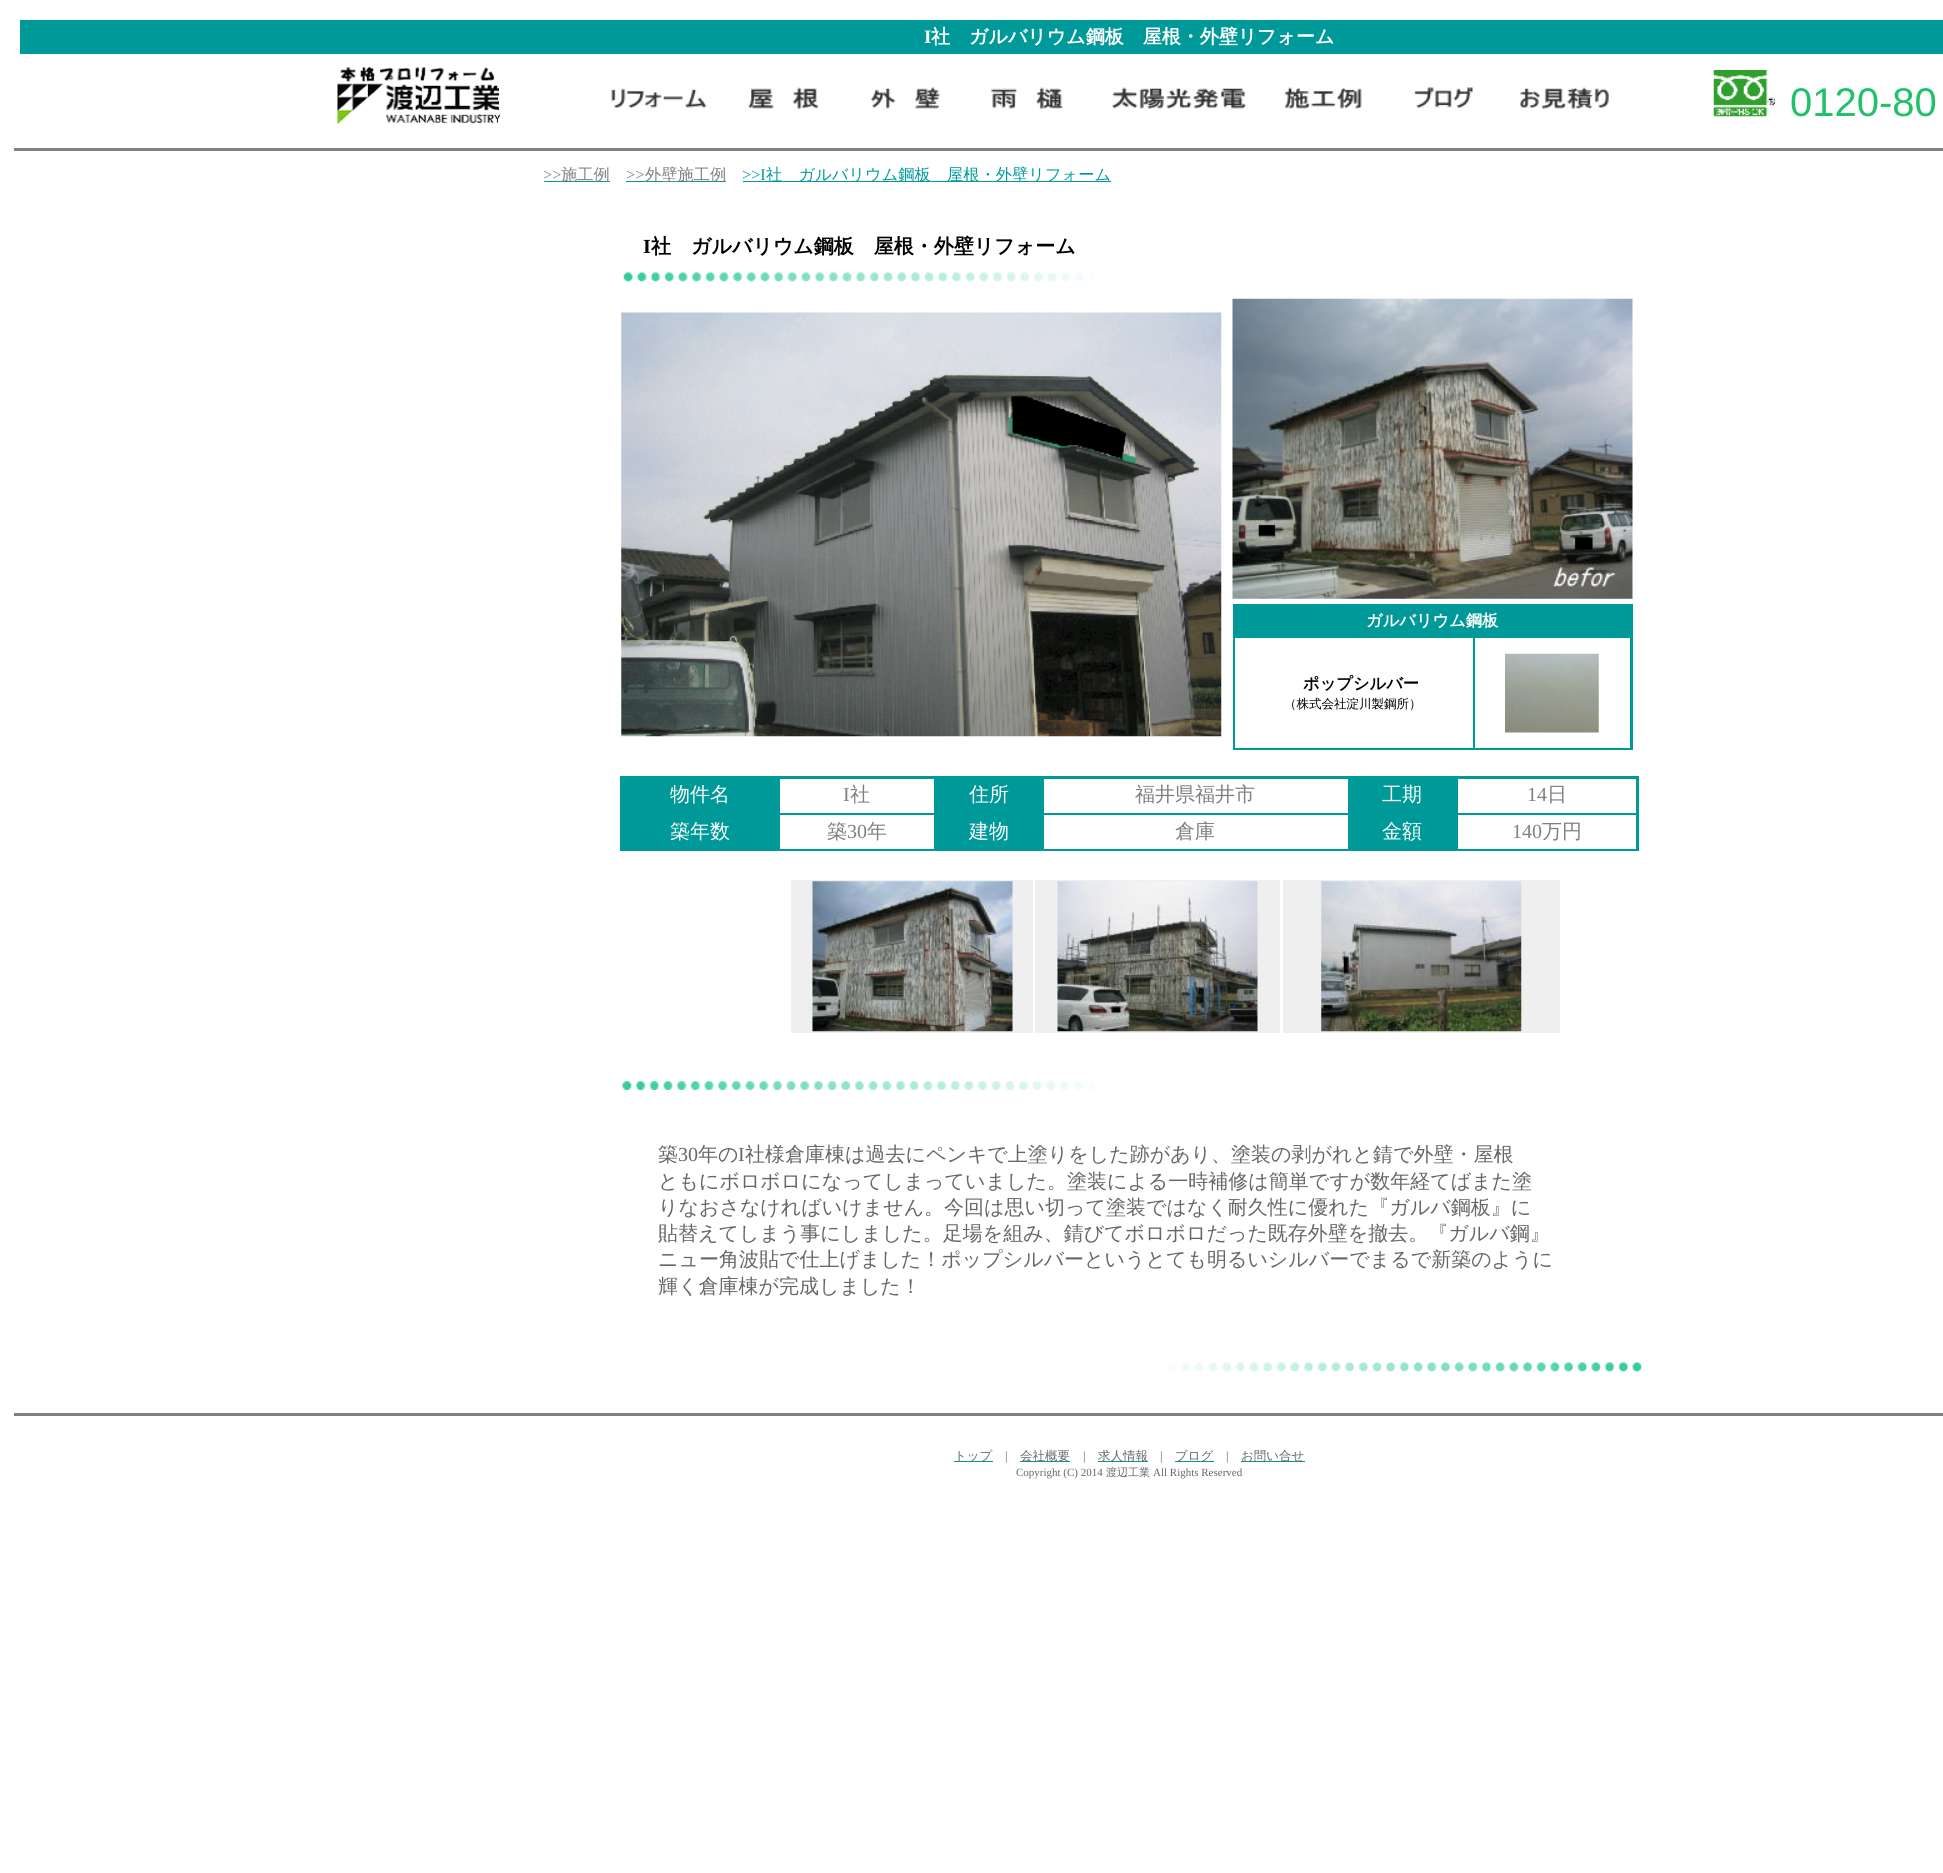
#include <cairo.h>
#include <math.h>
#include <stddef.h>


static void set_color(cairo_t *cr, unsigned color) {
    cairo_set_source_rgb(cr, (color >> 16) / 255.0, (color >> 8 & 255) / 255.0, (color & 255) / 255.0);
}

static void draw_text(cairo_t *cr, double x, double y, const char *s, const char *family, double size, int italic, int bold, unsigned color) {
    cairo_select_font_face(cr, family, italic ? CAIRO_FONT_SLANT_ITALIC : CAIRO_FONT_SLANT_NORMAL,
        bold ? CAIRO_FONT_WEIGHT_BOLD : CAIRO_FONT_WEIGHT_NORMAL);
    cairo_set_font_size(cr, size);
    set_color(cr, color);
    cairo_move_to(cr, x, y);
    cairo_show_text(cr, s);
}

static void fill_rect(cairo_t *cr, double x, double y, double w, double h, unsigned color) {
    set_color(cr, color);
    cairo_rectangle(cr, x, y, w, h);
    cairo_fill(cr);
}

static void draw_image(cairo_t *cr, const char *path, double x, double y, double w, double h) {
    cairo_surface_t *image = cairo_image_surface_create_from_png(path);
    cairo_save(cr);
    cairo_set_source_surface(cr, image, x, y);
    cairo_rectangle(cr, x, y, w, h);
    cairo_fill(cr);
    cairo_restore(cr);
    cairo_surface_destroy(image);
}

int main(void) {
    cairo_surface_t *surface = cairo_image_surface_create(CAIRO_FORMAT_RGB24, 1943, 1873);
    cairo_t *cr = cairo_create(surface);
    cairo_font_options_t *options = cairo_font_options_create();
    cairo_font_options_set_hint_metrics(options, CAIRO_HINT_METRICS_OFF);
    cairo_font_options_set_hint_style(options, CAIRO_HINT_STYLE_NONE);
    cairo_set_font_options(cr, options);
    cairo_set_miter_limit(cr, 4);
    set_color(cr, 0xFFFFFF);
    cairo_paint(cr);
    fill_rect(cr, 20, 20, 1923, 34, 0x009999);
    draw_text(cr, 924, 43, "I", "Liberation Serif", 19, 0, 1, 0xFFFFFF);
    draw_text(cr, 931, 43, "社　ガルバリウム鋼板　屋根・外壁リフォーム", "WenQuanYi Zen Hei", 19, 0, 1, 0xFFFFFF);
    draw_image(cr, "assets/img1.png", 337, 67, 163, 57);
    draw_image(cr, "assets/img2.png", 611, 88, 96, 20);
    draw_image(cr, "assets/img3.png", 748, 87, 71, 22);
    draw_image(cr, "assets/img4.png", 871, 87, 70, 22);
    draw_image(cr, "assets/img5.png", 991, 87, 72, 22);
    draw_image(cr, "assets/img6.png", 1112, 87, 134, 22);
    draw_image(cr, "assets/img7.png", 1284, 87, 78, 22);
    draw_image(cr, "assets/img8.png", 1414, 87, 59, 21);
    draw_image(cr, "assets/img9.png", 1519, 87, 90, 22);
    draw_image(cr, "assets/img10.png", 1713, 70, 62, 47);
    draw_text(cr, 1790, 116, "0120-80", "Liberation Sans", 40, 0, 0, 0x20C168);
    fill_rect(cr, 14, 148, 1929, 3, 0x808080);
    draw_text(cr, 543, 180, ">>", "Liberation Serif", 16.25, 0, 0, 0x808080);
    fill_rect(cr, 544, 181, 66, 1, 0x009999);
    draw_text(cr, 561, 180, "施工例", "WenQuanYi Zen Hei Medium", 16.25, 0, 0, 0x808080);
    draw_text(cr, 626, 180, ">>", "Liberation Serif", 16.25, 0, 0, 0x808080);
    fill_rect(cr, 626, 181, 100, 1, 0x009999);
    draw_text(cr, 645, 180, "外壁施工例", "WenQuanYi Zen Hei Medium", 16.25, 0, 0, 0x808080);
    draw_text(cr, 742, 180, ">>I", "Liberation Serif", 16.25, 0, 0, 0x009999);
    fill_rect(cr, 743, 181, 368, 1, 0x009999);
    draw_text(cr, 766, 180, "社　ガルバリウム鋼板　屋根・外壁リフォーム", "WenQuanYi Zen Hei Medium", 16.25, 0, 0, 0x009999);
    draw_text(cr, 643, 253, "I", "Liberation Serif", 20, 0, 1, 0x000000);
    draw_text(cr, 651, 253, "社　ガルバリウム鋼板　屋根・外壁リフォーム", "WenQuanYi Zen Hei", 20, 0, 1, 0x000000);
    draw_image(cr, "assets/img11.png", 623, 272, 473, 10);
    draw_image(cr, "assets/img12.png", 621, 312, 601, 425);
    draw_image(cr, "assets/img13.png", 1232, 298, 401, 301);
    fill_rect(cr, 1233, 604, 400, 146, 0x009999);
    draw_text(cr, 1366, 626, "ガルバリウム鋼板", "WenQuanYi Zen Hei", 16.25, 0, 1, 0xFFFFFF);
    fill_rect(cr, 1235, 638, 238, 110, 0xFFFFFF);
    draw_text(cr, 1303, 689, "ポップシルバー", "WenQuanYi Zen Hei", 16.25, 0, 1, 0x000000);
    draw_text(cr, 1284, 708, "（株式会社淀川製鋼所）", "WenQuanYi Zen Hei Medium", 12.5, 0, 0, 0x000000);
    fill_rect(cr, 1475, 638, 155, 110, 0xFFFFFF);
    draw_image(cr, "assets/img14.png", 1505, 653, 94, 80);
    fill_rect(cr, 620, 776, 1019, 75, 0x009999);
    draw_text(cr, 670, 801, "物件名", "WenQuanYi Zen Hei Medium", 20, 0, 0, 0xFFFFFF);
    fill_rect(cr, 780, 779, 154, 34, 0xFFFFFF);
    draw_text(cr, 843, 801, "I", "Liberation Serif", 20, 0, 0, 0x808080);
    draw_text(cr, 850, 801, "社", "WenQuanYi Zen Hei Medium", 20, 0, 0, 0x808080);
    draw_text(cr, 969, 801, "住所", "WenQuanYi Zen Hei Medium", 20, 0, 0, 0xFFFFFF);
    fill_rect(cr, 1044, 779, 304, 34, 0xFFFFFF);
    draw_text(cr, 1135, 801, "福井県福井市", "WenQuanYi Zen Hei Medium", 20, 0, 0, 0x808080);
    draw_text(cr, 1382, 801, "工期", "WenQuanYi Zen Hei Medium", 20, 0, 0, 0xFFFFFF);
    fill_rect(cr, 1458, 779, 178, 34, 0xFFFFFF);
    draw_text(cr, 1527, 801, "14", "Liberation Serif", 20, 0, 0, 0x808080);
    draw_text(cr, 1547, 801, "日", "WenQuanYi Zen Hei Medium", 20, 0, 0, 0x808080);
    draw_text(cr, 670, 838, "築年数", "WenQuanYi Zen Hei Medium", 20, 0, 0, 0xFFFFFF);
    fill_rect(cr, 780, 815, 154, 34, 0xFFFFFF);
    draw_text(cr, 827, 838, "築", "WenQuanYi Zen Hei Medium", 20, 0, 0, 0x808080);
    draw_text(cr, 847, 838, "30", "Liberation Serif", 20, 0, 0, 0x808080);
    draw_text(cr, 867, 838, "年", "WenQuanYi Zen Hei Medium", 20, 0, 0, 0x808080);
    draw_text(cr, 969, 838, "建物", "WenQuanYi Zen Hei Medium", 20, 0, 0, 0xFFFFFF);
    fill_rect(cr, 1044, 815, 304, 34, 0xFFFFFF);
    draw_text(cr, 1175, 838, "倉庫", "WenQuanYi Zen Hei Medium", 20, 0, 0, 0x808080);
    draw_text(cr, 1382, 838, "金額", "WenQuanYi Zen Hei Medium", 20, 0, 0, 0xFFFFFF);
    fill_rect(cr, 1458, 815, 178, 34, 0xFFFFFF);
    draw_text(cr, 1512, 838, "140", "Liberation Serif", 20, 0, 0, 0x808080);
    draw_text(cr, 1542, 838, "万円", "WenQuanYi Zen Hei Medium", 20, 0, 0, 0x808080);
    fill_rect(cr, 791, 880, 242, 153, 0xEFEFEF);
    draw_image(cr, "assets/img15.png", 812, 881, 201, 151);
    fill_rect(cr, 1035, 880, 245, 153, 0xEFEFEF);
    draw_image(cr, "assets/img16.png", 1057, 881, 201, 151);
    fill_rect(cr, 1283, 880, 277, 153, 0xEFEFEF);
    draw_image(cr, "assets/img17.png", 1321, 881, 201, 151);
    draw_image(cr, "assets/img18.png", 622, 1081, 473, 9);
    draw_text(cr, 658, 1161, "築", "WenQuanYi Zen Hei Medium", 20, 0, 0, 0x666666);
    draw_text(cr, 678, 1161, "30", "Liberation Serif", 20, 0, 0, 0x666666);
    draw_text(cr, 698, 1161, "年の", "WenQuanYi Zen Hei Medium", 20, 0, 0, 0x666666);
    draw_text(cr, 738, 1161, "I", "Liberation Serif", 20, 0, 0, 0x666666);
    draw_text(cr, 745, 1161, "社様倉庫棟は過去にペンキで上塗りをした跡があり、塗装の剥がれと錆で外壁・屋根", "WenQuanYi Zen Hei Medium", 20, 0, 0, 0x666666);
    draw_text(cr, 658, 1188, "ともにボロボロになってしまっていました。塗装による一時補修は簡単ですが数年経てばまた塗", "WenQuanYi Zen Hei Medium", 20, 0, 0, 0x666666);
    draw_text(cr, 658, 1214, "りなおさなければいけません。今回は思い切って塗装ではなく耐久性に優れた『ガルバ鋼板』に", "WenQuanYi Zen Hei Medium", 20, 0, 0, 0x666666);
    draw_text(cr, 658, 1240, "貼替えてしまう事にしました。足場を組み、錆びてボロボロだった既存外壁を撤去。『ガルバ鋼』", "WenQuanYi Zen Hei Medium", 20, 0, 0, 0x666666);
    draw_text(cr, 658, 1266, "ニュー角波貼で仕上げました！ポップシルバーというとても明るいシルバーでまるで新築のように", "WenQuanYi Zen Hei Medium", 20, 0, 0, 0x666666);
    draw_text(cr, 658, 1293, "輝く倉庫棟が完成しました！", "WenQuanYi Zen Hei Medium", 20, 0, 0, 0x666666);
    draw_image(cr, "assets/img19.png", 1160, 1362, 482, 10);
    fill_rect(cr, 14, 1413, 1929, 3, 0x808080);
    fill_rect(cr, 954, 1461, 39, 1, 0x009999);
    draw_text(cr, 954, 1460, "トップ", "WenQuanYi Zen Hei Medium", 12.5, 0, 0, 0x666666);
    draw_text(cr, 1005, 1460, "|", "Liberation Serif", 12.5, 0, 0, 0x666666);
    fill_rect(cr, 1020, 1461, 50, 1, 0x009999);
    draw_text(cr, 1020, 1460, "会社概要", "WenQuanYi Zen Hei Medium", 12.5, 0, 0, 0x666666);
    draw_text(cr, 1083, 1460, "|", "Liberation Serif", 12.5, 0, 0, 0x666666);
    fill_rect(cr, 1098, 1461, 50, 1, 0x009999);
    draw_text(cr, 1098, 1460, "求人情報", "WenQuanYi Zen Hei Medium", 12.5, 0, 0, 0x666666);
    draw_text(cr, 1160, 1460, "|", "Liberation Serif", 12.5, 0, 0, 0x666666);
    fill_rect(cr, 1175, 1461, 39, 1, 0x009999);
    draw_text(cr, 1175, 1460, "ブログ", "WenQuanYi Zen Hei Medium", 12.5, 0, 0, 0x666666);
    draw_text(cr, 1226, 1460, "|", "Liberation Serif", 12.5, 0, 0, 0x666666);
    fill_rect(cr, 1241, 1461, 64, 1, 0x009999);
    draw_text(cr, 1241, 1460, "お問い合せ", "WenQuanYi Zen Hei Medium", 12.5, 0, 0, 0x666666);
    draw_text(cr, 1016, 1476, "Copyright (C) 2014", "Liberation Serif", 11, 0, 0, 0x666666);
    draw_text(cr, 1106, 1476, "渡辺工業", "WenQuanYi Zen Hei Medium", 11, 0, 0, 0x666666);
    draw_text(cr, 1153, 1476, "All Rights Reserved", "Liberation Serif", 11, 0, 0, 0x666666);
    cairo_surface_write_to_png(surface, "output.png");
    cairo_font_options_destroy(options);
    cairo_destroy(cr);
    cairo_surface_destroy(surface);
    return 0;
}
